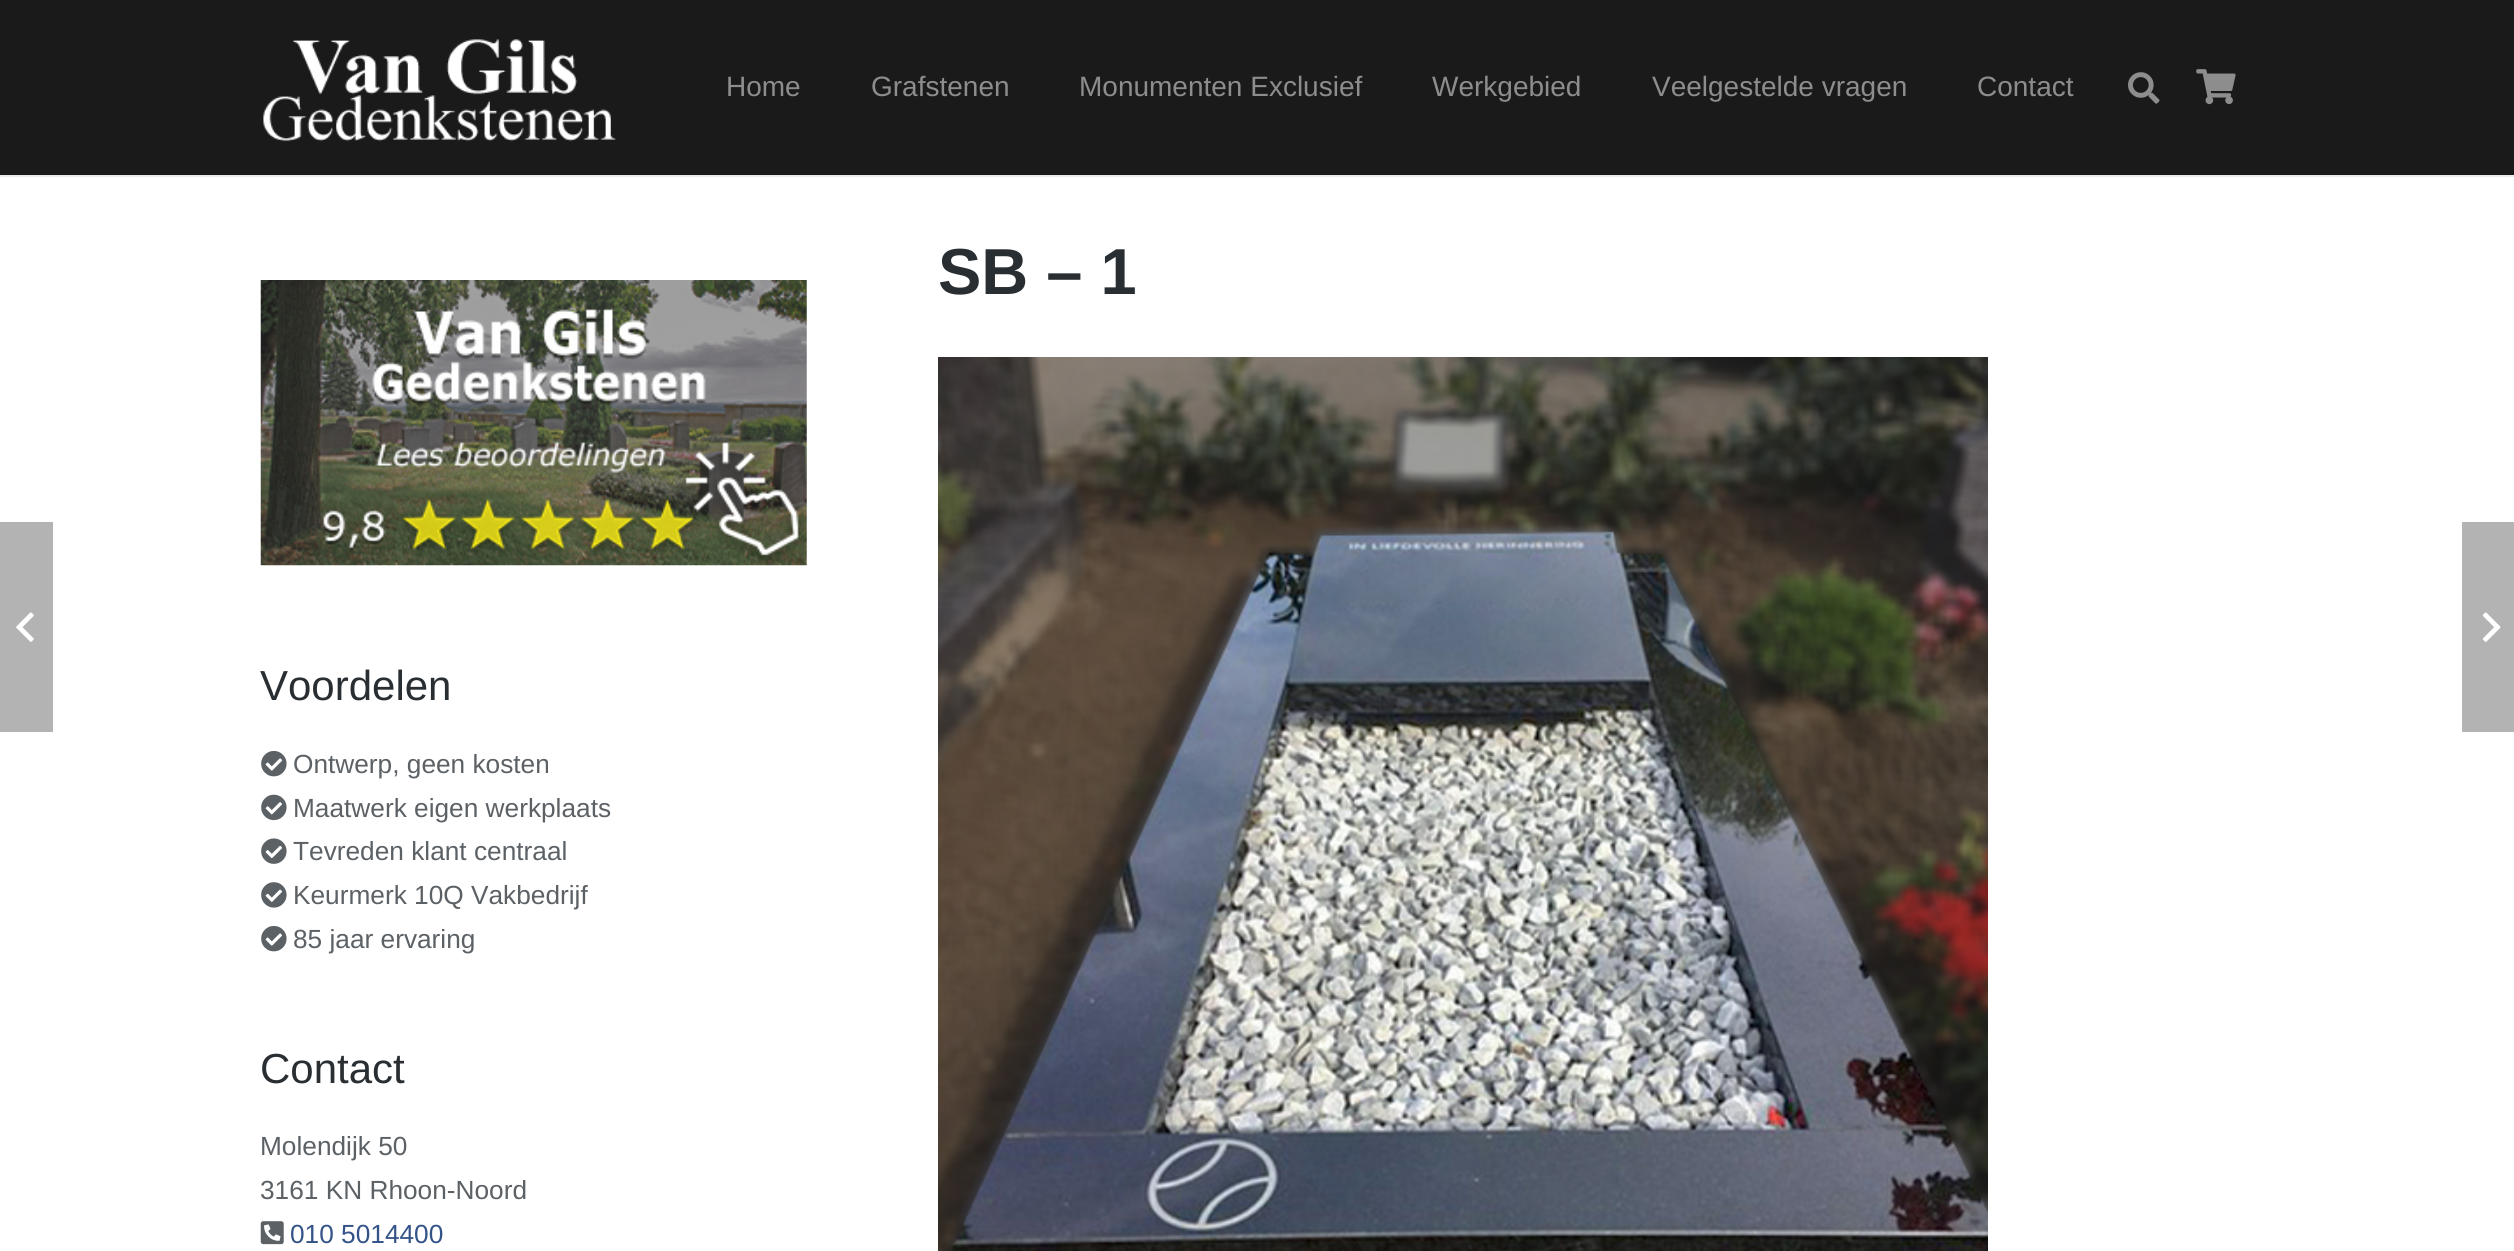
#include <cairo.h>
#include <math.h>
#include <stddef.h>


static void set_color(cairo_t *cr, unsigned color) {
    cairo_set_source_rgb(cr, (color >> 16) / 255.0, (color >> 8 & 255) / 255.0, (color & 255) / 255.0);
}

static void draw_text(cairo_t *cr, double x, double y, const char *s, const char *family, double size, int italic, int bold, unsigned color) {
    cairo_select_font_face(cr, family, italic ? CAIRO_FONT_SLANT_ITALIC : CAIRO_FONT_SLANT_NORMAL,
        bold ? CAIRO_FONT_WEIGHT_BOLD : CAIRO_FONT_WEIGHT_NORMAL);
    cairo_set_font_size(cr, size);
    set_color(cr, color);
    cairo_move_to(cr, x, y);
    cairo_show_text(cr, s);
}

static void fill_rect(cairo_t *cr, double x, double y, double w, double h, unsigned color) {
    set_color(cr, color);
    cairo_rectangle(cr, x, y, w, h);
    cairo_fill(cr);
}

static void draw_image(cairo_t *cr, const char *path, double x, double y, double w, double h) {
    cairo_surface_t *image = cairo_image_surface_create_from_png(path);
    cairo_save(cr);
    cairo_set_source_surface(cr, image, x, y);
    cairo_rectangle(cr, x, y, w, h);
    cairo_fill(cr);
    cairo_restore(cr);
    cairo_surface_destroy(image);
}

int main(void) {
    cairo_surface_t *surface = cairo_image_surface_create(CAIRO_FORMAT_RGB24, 2514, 1251);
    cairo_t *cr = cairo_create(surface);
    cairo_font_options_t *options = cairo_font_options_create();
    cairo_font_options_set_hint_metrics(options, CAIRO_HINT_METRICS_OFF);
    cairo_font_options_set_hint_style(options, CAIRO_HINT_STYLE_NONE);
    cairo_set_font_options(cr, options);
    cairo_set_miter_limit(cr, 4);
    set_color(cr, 0xFFFFFF);
    cairo_paint(cr);
    set_color(cr, 0xEBEBEB);
    cairo_new_path(cr);
    cairo_move_to(cr, 0, 175);
    cairo_line_to(cr, 0, 177);
    cairo_line_to(cr, 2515, 177);
    cairo_line_to(cr, 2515, 2);
    cairo_line_to(cr, 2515, 175);
    cairo_close_path(cr);
    cairo_fill(cr);
    fill_rect(cr, 0, 0, 2514, 175, 0x1A1A1A);
    draw_image(cr, "assets/img1.png", 263, 39, 353, 103);
    draw_text(cr, 726, 96, "Home", "Liberation Sans", 28, 0, 0, 0x8D8D8D);
    draw_text(cr, 871, 96, "Grafstenen", "Liberation Sans", 28, 0, 0, 0x8D8D8D);
    draw_text(cr, 1079, 96, "Monumenten Exclusief", "Liberation Sans", 28, 0, 0, 0x8D8D8D);
    draw_text(cr, 1432, 96, "Werkgebied", "Liberation Sans", 28, 0, 0, 0x8D8D8D);
    draw_text(cr, 1652, 96, "Veelgestelde vragen", "Liberation Sans", 28, 0, 0, 0x8D8D8D);
    draw_text(cr, 1977, 96, "Contact", "Liberation Sans", 28, 0, 0, 0x8D8D8D);
    draw_image(cr, "assets/img2.png", 2128, 72, 32, 32);
    draw_image(cr, "assets/img3.png", 2196, 69, 40, 36);
    draw_text(cr, 938, 294, "SB – 1", "Liberation Sans", 65, 0, 1, 0x292E33);
    draw_image(cr, "assets/img4.png", 938, 357, 1050, 894);
    fill_rect(cr, 0, 522, 53, 210, 0xB3B3B3);
    draw_image(cr, "assets/img5.png", 16, 612, 18, 30);
    fill_rect(cr, 2462, 522, 52, 210, 0xB3B3B3);
    draw_image(cr, "assets/img6.png", 2482, 612, 19, 30);
    draw_image(cr, "assets/img7.png", 260, 280, 547, 286);
    draw_text(cr, 260, 700, "Voordelen", "Liberation Sans", 42, 0, 0, 0x292E33);
    draw_image(cr, "assets/img8.png", 261, 750, 26, 27);
    draw_text(cr, 293, 773, "Ontwerp, geen kosten", "Liberation Sans", 26.25, 0, 0, 0x5C6166);
    draw_image(cr, "assets/img9.png", 261, 794, 26, 27);
    draw_text(cr, 293, 817, "Maatwerk eigen werkplaats", "Liberation Sans", 26.25, 0, 0, 0x5C6166);
    draw_image(cr, "assets/img10.png", 261, 838, 26, 26);
    draw_text(cr, 293, 860, "Tevreden klant centraal", "Liberation Sans", 26.25, 0, 0, 0x5C6166);
    draw_image(cr, "assets/img11.png", 261, 882, 26, 26);
    draw_text(cr, 293, 904, "Keurmerk 10Q Vakbedrijf", "Liberation Sans", 26.25, 0, 0, 0x5C6166);
    draw_image(cr, "assets/img8.png", 261, 925, 26, 27);
    draw_text(cr, 293, 948, "85 jaar ervaring", "Liberation Sans", 26.25, 0, 0, 0x5C6166);
    draw_text(cr, 260, 1083, "Contact", "Liberation Sans", 42, 0, 0, 0x292E33);
    draw_text(cr, 260, 1155, "Molendijk 50", "Liberation Sans", 26.25, 0, 0, 0x5C6166);
    draw_text(cr, 260, 1199, "3161 KN Rhoon-Noord", "Liberation Sans", 26.25, 0, 0, 0x5C6166);
    draw_image(cr, "assets/img12.png", 260, 1221, 24, 24);
    draw_text(cr, 290, 1243, "010 5014400", "Liberation Sans", 26.25, 0, 0, 0x345489);
    cairo_surface_write_to_png(surface, "output.png");
    cairo_font_options_destroy(options);
    cairo_destroy(cr);
    cairo_surface_destroy(surface);
    return 0;
}
